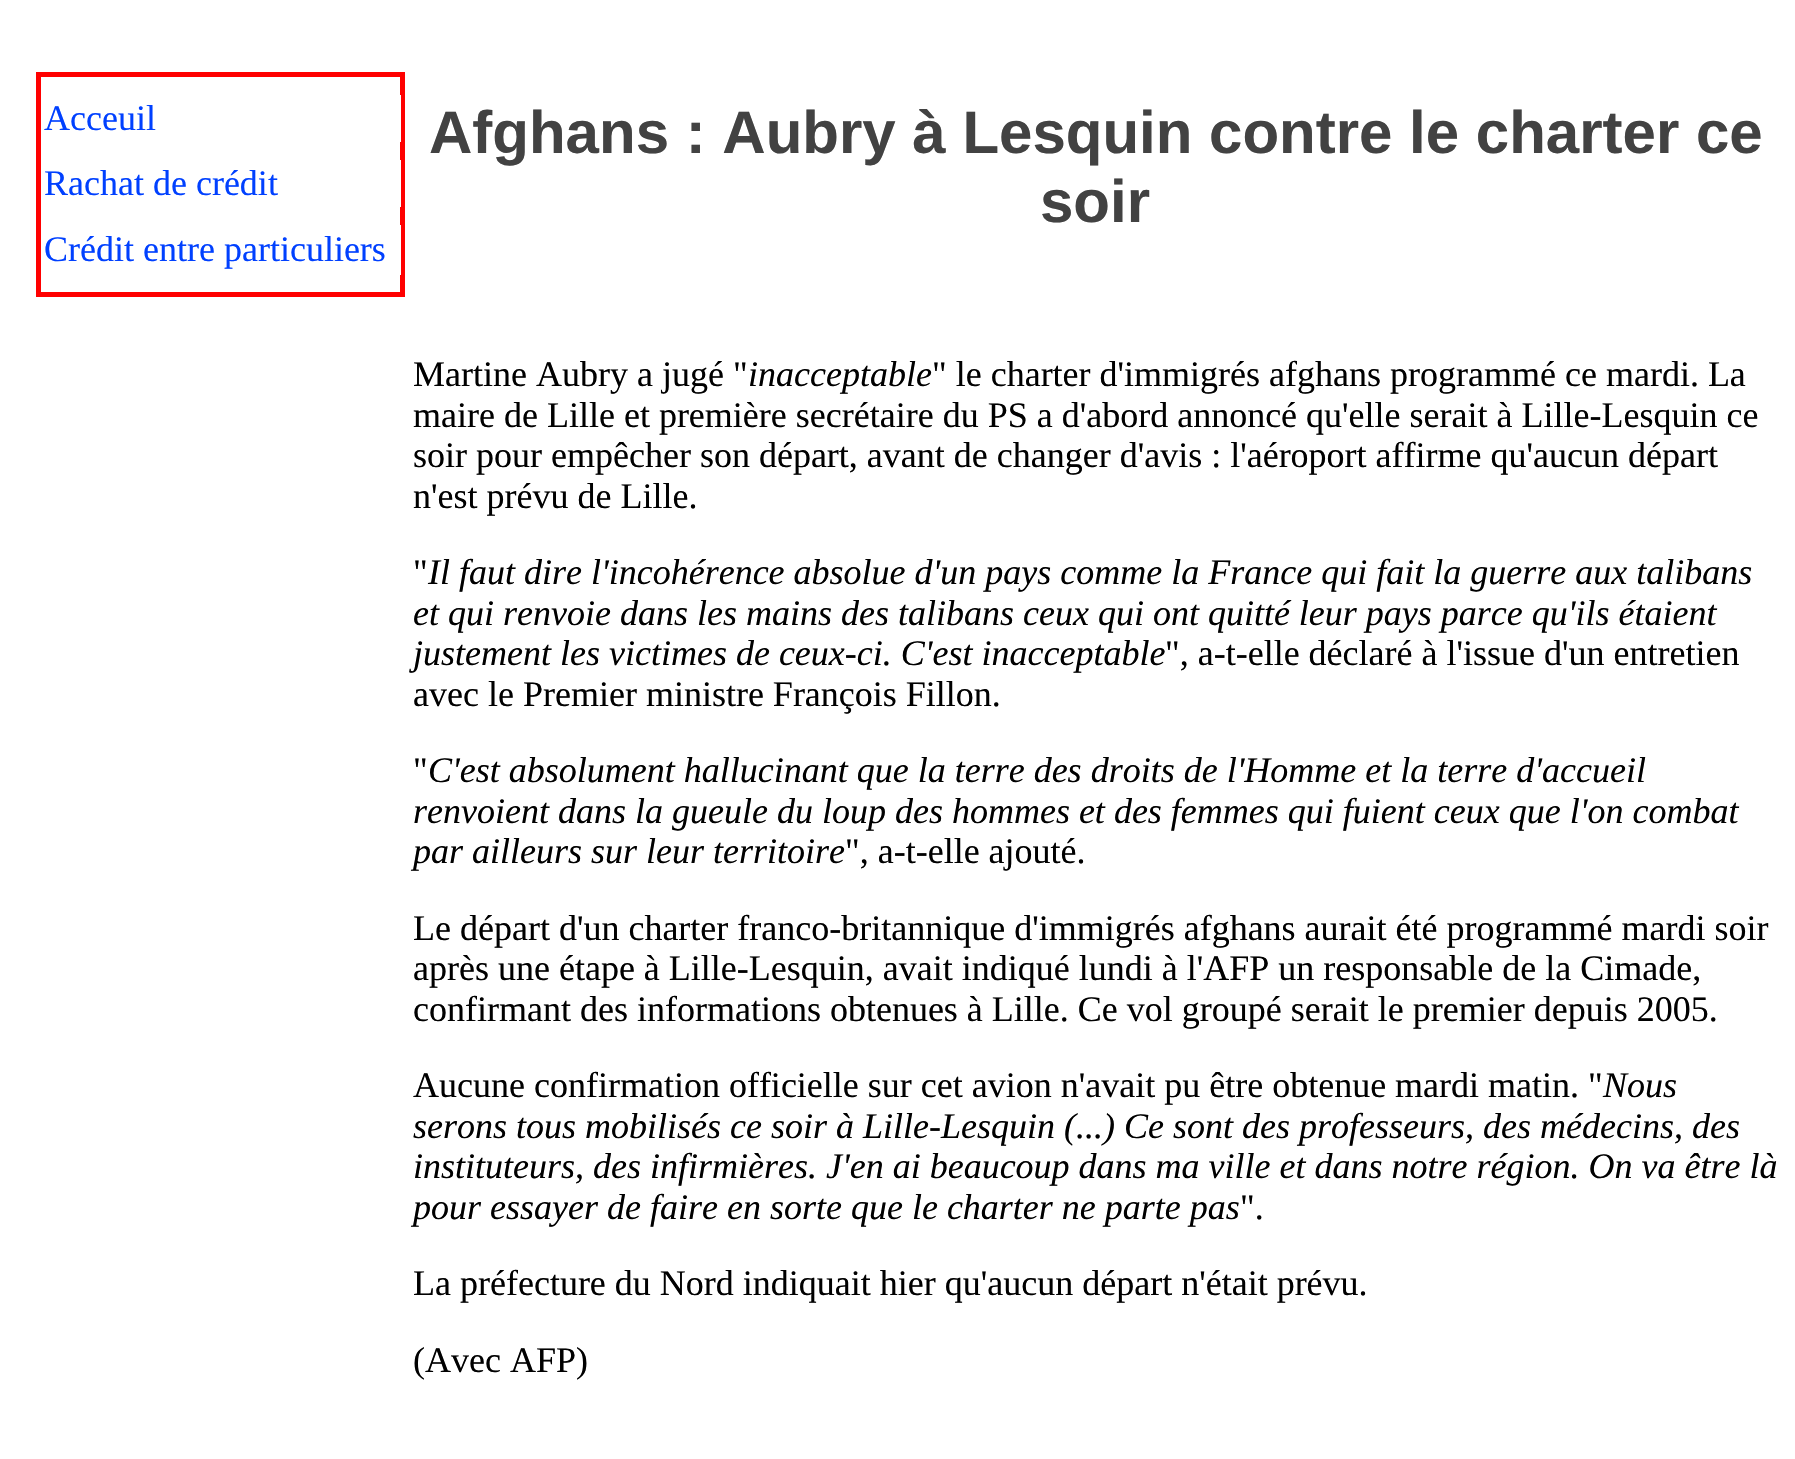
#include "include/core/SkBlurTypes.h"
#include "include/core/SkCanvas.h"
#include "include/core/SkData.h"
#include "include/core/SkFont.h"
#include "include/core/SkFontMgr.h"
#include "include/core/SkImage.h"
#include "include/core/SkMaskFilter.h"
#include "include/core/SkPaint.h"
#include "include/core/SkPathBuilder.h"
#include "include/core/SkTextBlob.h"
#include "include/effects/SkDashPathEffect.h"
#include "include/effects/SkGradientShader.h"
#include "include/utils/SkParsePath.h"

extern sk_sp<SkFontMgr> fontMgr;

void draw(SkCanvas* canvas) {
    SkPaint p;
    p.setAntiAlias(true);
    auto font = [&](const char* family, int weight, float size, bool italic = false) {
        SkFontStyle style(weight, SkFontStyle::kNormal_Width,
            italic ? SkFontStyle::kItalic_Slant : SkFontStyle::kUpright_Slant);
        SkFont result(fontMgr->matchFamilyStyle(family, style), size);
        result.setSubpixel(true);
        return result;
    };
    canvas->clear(0xFFFFFFFF);
    p.setStyle(SkPaint::kStroke_Style);
    p.setStrokeWidth(5);
    p.setColor(0xFFFF0000);
    canvas->drawRect(SkRect::MakeLTRB(38.5f, 74.5f, 402.5f, 294.5f), p);
    p.setStyle(SkPaint::kFill_Style);
    p.setColor(0xFFFFFFFF);
    canvas->drawRect(SkRect::MakeLTRB(400, 95, 401, 142), p);
    auto font1 = font("Liberation Serif", 400, 36);
    p.setColor(0xFF0040FF);
    canvas->drawString("Acceuil", 44, 130, font1, p);
    p.setColor(0xFFFFFFFF);
    canvas->drawRect(SkRect::MakeLTRB(400, 160, 401, 207), p);
    p.setColor(0xFF0040FF);
    canvas->drawString("Rachat de crédit", 44, 195, font1, p);
    p.setColor(0xFFFFFFFF);
    canvas->drawRect(SkRect::MakeLTRB(400, 225, 401, 275), p);
    p.setColor(0xFF0040FF);
    canvas->drawString("Crédit entre particuliers", 44, 261, font1, p);
    auto font2 = font("Liberation Sans", 700, 60);
    p.setColor(0xFF424242);
    canvas->drawString("Afghans : Aubry à Lesquin contre le charter ce", 429, 153, font2, p);
    canvas->drawString("soir", 1040, 222, font2, p);
    p.setColor(0xFF000000);
    canvas->drawString("Martine Aubry a jugé \"", 413, 386, font1, p);
    auto font3 = font("Liberation Serif", 400, 36, true);
    canvas->drawString("inacceptable", 748, 386, font3, p);
    {
        const struct { const char* s; float x, y; } items[] = {
            {"\" le charter d'immigrés afghans programmé ce mardi. La", 932, 386},
            {"maire de Lille et première secrétaire du PS a d'abord annoncé qu'elle serait à Lille-Lesquin ce", 413, 427},
            {"soir pour empêcher son départ, avant de changer d'avis : l'aéroport affirme qu'aucun départ", 413, 467},
            {"n'est prévu de Lille.", 413, 508},
            {"\"", 413, 584},
        };
        for (auto [s, x, y] : items) {
            canvas->drawString(s, x, y, font1, p);
        }
    }
    {
        const struct { const char* s; float x, y; } items[] = {
            {"Il faut dire l'incohérence absolue d'un pays comme la France qui fait la guerre aux talibans", 428, 584},
            {"et qui renvoie dans les mains des talibans ceux qui ont quitté leur pays parce qu'ils étaient", 413, 625},
            {"justement les victimes de ceux-ci. C'est inacceptable", 413, 665},
        };
        for (auto [s, x, y] : items) {
            canvas->drawString(s, x, y, font3, p);
        }
    }
    {
        const struct { const char* s; float x, y; } items[] = {
            {"\", a-t-elle déclaré à l'issue d'un entretien", 1165, 665},
            {"avec le Premier ministre François Fillon.", 413, 706},
            {"\"", 413, 782},
        };
        for (auto [s, x, y] : items) {
            canvas->drawString(s, x, y, font1, p);
        }
    }
    {
        const struct { const char* s; float x, y; } items[] = {
            {"C'est absolument hallucinant que la terre des droits de l'Homme et la terre d'accueil", 428, 782},
            {"renvoient dans la gueule du loup des hommes et des femmes qui fuient ceux que l'on combat", 413, 823},
            {"par ailleurs sur leur territoire", 413, 863},
        };
        for (auto [s, x, y] : items) {
            canvas->drawString(s, x, y, font3, p);
        }
    }
    {
        const struct { const char* s; float x, y; } items[] = {
            {"\", a-t-elle ajouté.", 845, 863},
            {"Le départ d'un charter franco-britannique d'immigrés afghans aurait été programmé mardi soir", 413, 940},
            {"après une étape à Lille-Lesquin, avait indiqué lundi à l'AFP un responsable de la Cimade,", 413, 980},
            {"confirmant des informations obtenues à Lille. Ce vol groupé serait le premier depuis 2005.", 413, 1021},
            {"Aucune confirmation officielle sur cet avion n'avait pu être obtenue mardi matin. \"", 413, 1097},
        };
        for (auto [s, x, y] : items) {
            canvas->drawString(s, x, y, font1, p);
        }
    }
    {
        const struct { const char* s; float x, y; } items[] = {
            {"Nous", 1603, 1097},
            {"serons tous mobilisés ce soir à Lille-Lesquin (...) Ce sont des professeurs, des médecins, des", 413, 1138},
            {"instituteurs, des infirmières. J'en ai beaucoup dans ma ville et dans notre région. On va être là", 413, 1178},
            {"pour essayer de faire en sorte que le charter ne parte pas", 413, 1219},
        };
        for (auto [s, x, y] : items) {
            canvas->drawString(s, x, y, font3, p);
        }
    }
    {
        const struct { const char* s; float x, y; } items[] = {
            {"\".", 1240, 1219},
            {"La préfecture du Nord indiquait hier qu'aucun départ n'était prévu.", 413, 1295},
            {"(Avec AFP)", 413, 1372},
        };
        for (auto [s, x, y] : items) {
            canvas->drawString(s, x, y, font1, p);
        }
    }
}
